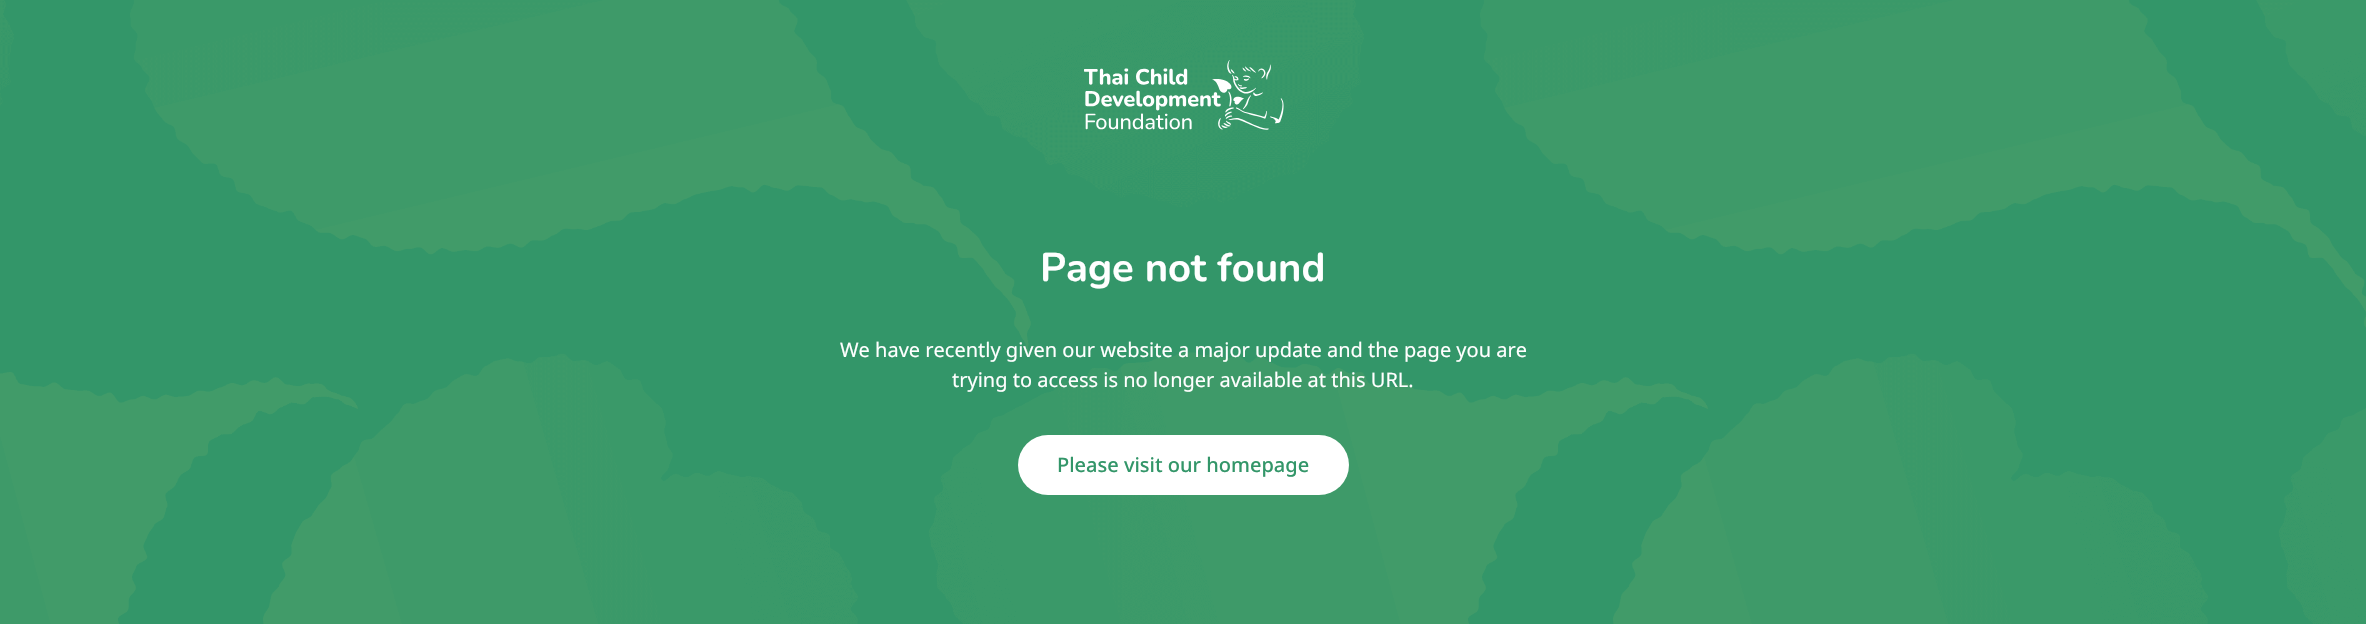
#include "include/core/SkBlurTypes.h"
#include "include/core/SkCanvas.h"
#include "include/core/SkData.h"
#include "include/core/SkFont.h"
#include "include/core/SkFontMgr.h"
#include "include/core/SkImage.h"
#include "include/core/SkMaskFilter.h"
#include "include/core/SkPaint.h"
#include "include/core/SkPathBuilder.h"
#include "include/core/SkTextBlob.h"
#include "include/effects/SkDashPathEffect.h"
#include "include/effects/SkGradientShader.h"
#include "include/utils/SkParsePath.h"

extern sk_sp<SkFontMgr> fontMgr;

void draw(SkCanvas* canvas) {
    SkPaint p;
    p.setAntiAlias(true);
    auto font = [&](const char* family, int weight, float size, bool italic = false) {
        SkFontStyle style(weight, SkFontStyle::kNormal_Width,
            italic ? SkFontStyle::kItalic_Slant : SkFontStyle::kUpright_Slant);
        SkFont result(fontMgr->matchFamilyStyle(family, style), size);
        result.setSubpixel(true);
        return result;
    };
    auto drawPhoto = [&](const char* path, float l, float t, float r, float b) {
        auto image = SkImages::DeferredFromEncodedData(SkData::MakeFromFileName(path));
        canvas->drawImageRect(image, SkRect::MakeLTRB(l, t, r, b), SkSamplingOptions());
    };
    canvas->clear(0xFFFFFFFF);
    drawPhoto("media/1.png", 0, 0, 2366, 624);
    drawPhoto("media/2.png", 1084, 60, 1284, 130);
    auto font1 = font("Nunito", 200, 40);
    p.setColor(0xFFFFFFFF);
    canvas->drawString("Page not found", 1040, 281, font1, p);
    auto font2 = font("Noto Sans", 400, 20);
    canvas->drawString("We have recently given our website a major update and the page you are", 840, 357, font2, p);
    canvas->drawString("trying to access is no longer available at this URL.", 952, 387, font2, p);
    canvas->drawRoundRect(SkRect::MakeLTRB(1018, 435, 1349, 495), 30, 30, p);
    auto font3 = font("Noto Sans", 500, 20);
    p.setColor(0xFF339669);
    canvas->drawString("Please visit our homepage", 1057, 472, font3, p);
}
